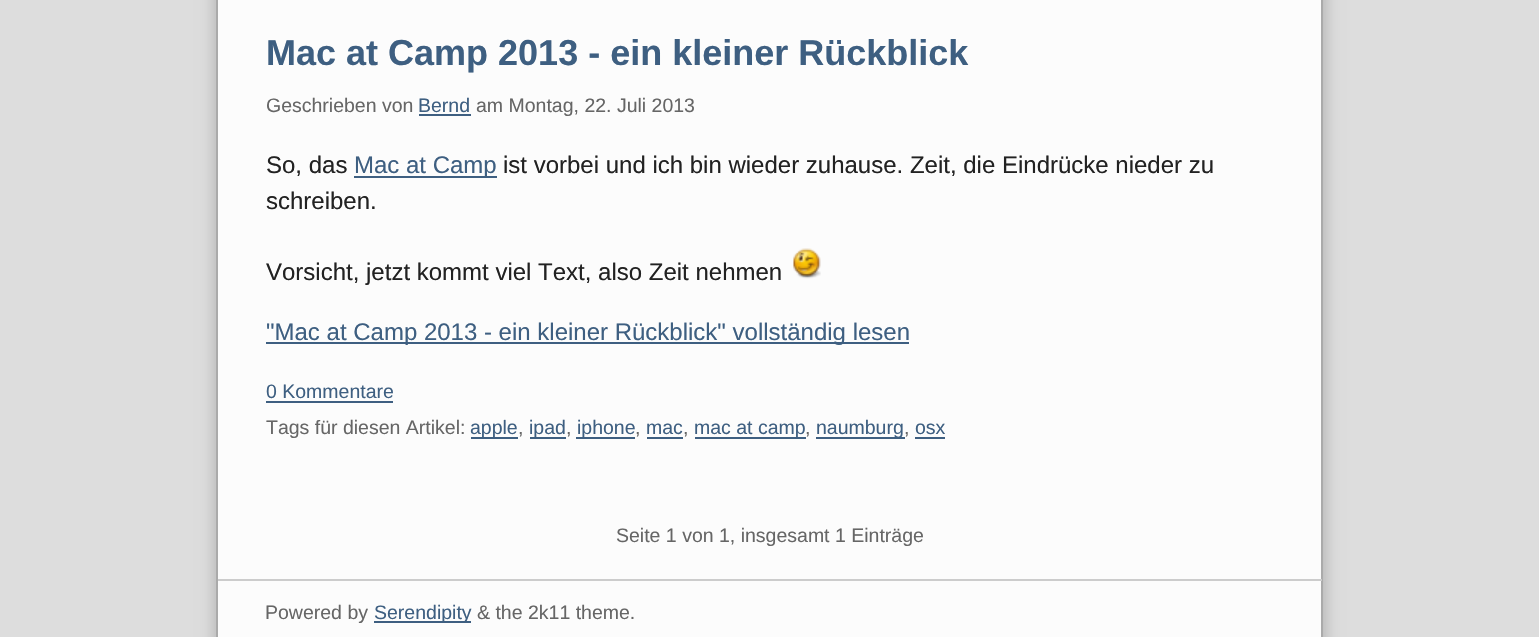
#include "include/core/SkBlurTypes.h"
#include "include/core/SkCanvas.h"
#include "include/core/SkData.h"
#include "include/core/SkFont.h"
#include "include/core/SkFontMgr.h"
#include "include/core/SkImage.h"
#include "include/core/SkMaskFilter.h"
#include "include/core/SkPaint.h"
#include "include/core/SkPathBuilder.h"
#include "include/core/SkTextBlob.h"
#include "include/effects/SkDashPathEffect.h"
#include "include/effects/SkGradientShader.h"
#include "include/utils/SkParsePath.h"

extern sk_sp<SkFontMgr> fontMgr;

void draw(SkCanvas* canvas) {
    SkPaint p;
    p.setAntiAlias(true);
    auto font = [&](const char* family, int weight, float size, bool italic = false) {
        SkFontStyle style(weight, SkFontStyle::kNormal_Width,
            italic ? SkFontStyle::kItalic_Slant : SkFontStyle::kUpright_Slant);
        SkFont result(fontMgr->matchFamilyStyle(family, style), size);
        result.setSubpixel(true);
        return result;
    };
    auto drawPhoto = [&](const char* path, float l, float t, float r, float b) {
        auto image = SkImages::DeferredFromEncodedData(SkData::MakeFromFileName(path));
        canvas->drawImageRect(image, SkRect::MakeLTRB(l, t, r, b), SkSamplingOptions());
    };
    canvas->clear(0xFFDDDDDD);
    p.setColor(0x33000000);
    p.setMaskFilter(SkMaskFilter::MakeBlur(kNormal_SkBlurStyle, 7.5f));
    canvas->drawRect(SkRect::MakeLTRB(215, -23, 1325, 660), p);
    p.setMaskFilter(nullptr);
    p.setColor(0xFFFCFCFC);
    canvas->drawRect(SkRect::MakeLTRB(217, -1, 1322, 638), p);
    p.setStyle(SkPaint::kStroke_Style);
    p.setStrokeWidth(2);
    p.setColor(0xFFAAAAAA);
    canvas->drawRect(SkRect::MakeLTRB(217, -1, 1322, 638), p);
    auto font1 = font("Liberation Sans", 700, 36);
    p.setStyle(SkPaint::kFill_Style);
    p.setColor(0xFF3E5F81);
    canvas->drawString("Mac at Camp 2013 - ein kleiner Rückblick", 266, 65, font1, p);
    auto font2 = font("Liberation Sans", 400, 19.5f);
    p.setColor(0xFF666666);
    canvas->drawString("Geschrieben von", 266, 112, font2, p);
    p.setColor(0xFF3E5F81);
    canvas->drawString("Bernd", 418, 112, font2, p);
    canvas->drawRect(SkRect::MakeLTRB(419, 114, 471, 116), p);
    p.setColor(0xFF666666);
    canvas->drawString("am Montag, 22. Juli 2013", 476, 112, font2, p);
    auto font3 = font("Liberation Sans", 400, 24);
    p.setColor(0xFF222222);
    canvas->drawString("So, das", 266, 173, font3, p);
    p.setColor(0xFF3E5F81);
    canvas->drawRect(SkRect::MakeLTRB(354, 176, 497, 178), p);
    canvas->drawString("Mac at Camp", 354, 173, font3, p);
    p.setColor(0xFF222222);
    {
        const struct { const char* s; float x, y; } items[] = {
            {"ist vorbei und ich bin wieder zuhause. Zeit, die Eindrücke nieder zu", 503, 173},
            {"schreiben.", 266, 209},
            {"Vorsicht, jetzt kommt viel Text, also Zeit nehmen", 266, 280},
        };
        for (auto [s, x, y] : items) {
            canvas->drawString(s, x, y, font3, p);
        }
    }
    drawPhoto("media/1.png", 793, 248, 821, 279);
    p.setColor(0xFF3E5F81);
    canvas->drawRect(SkRect::MakeLTRB(266, 342, 909, 344), p);
    canvas->drawString("\"Mac at Camp 2013 - ein kleiner Rückblick\" vollständig lesen", 266, 340, font3, p);
    canvas->drawString("0 Kommentare", 266, 398, font2, p);
    canvas->drawRect(SkRect::MakeLTRB(266, 401, 393, 403), p);
    p.setColor(0xFF666666);
    canvas->drawString("Tags für diesen Artikel:", 266, 434, font2, p);
    p.setColor(0xFF3E5F81);
    canvas->drawRect(SkRect::MakeLTRB(471, 437, 518, 439), p);
    canvas->drawString("apple", 470, 434, font2, p);
    p.setColor(0xFF666666);
    canvas->drawString(",", 518, 434, font2, p);
    p.setColor(0xFF3E5F81);
    canvas->drawRect(SkRect::MakeLTRB(530, 437, 566, 439), p);
    canvas->drawString("ipad", 529, 434, font2, p);
    p.setColor(0xFF666666);
    canvas->drawString(",", 566, 434, font2, p);
    p.setColor(0xFF3E5F81);
    canvas->drawRect(SkRect::MakeLTRB(576, 437, 635, 439), p);
    canvas->drawString("iphone", 577, 434, font2, p);
    p.setColor(0xFF666666);
    canvas->drawString(",", 635, 434, font2, p);
    p.setColor(0xFF3E5F81);
    canvas->drawString("mac", 646, 434, font2, p);
    canvas->drawRect(SkRect::MakeLTRB(647, 437, 683, 439), p);
    p.setColor(0xFF666666);
    canvas->drawString(",", 683, 434, font2, p);
    p.setColor(0xFF3E5F81);
    canvas->drawRect(SkRect::MakeLTRB(695, 437, 806, 439), p);
    canvas->drawString("mac at camp", 694, 434, font2, p);
    p.setColor(0xFF666666);
    canvas->drawString(",", 805, 434, font2, p);
    p.setColor(0xFF3E5F81);
    canvas->drawRect(SkRect::MakeLTRB(816, 437, 905, 439), p);
    canvas->drawString("naumburg", 816, 434, font2, p);
    p.setColor(0xFF666666);
    canvas->drawString(",", 904, 434, font2, p);
    p.setColor(0xFF3E5F81);
    canvas->drawString("osx", 915, 434, font2, p);
    canvas->drawRect(SkRect::MakeLTRB(915, 437, 945, 439), p);
    p.setColor(0xFF666666);
    canvas->drawString("Seite 1 von 1, insgesamt 1 Einträge", 616, 542, font2, p);
    p.setColor(0xFFCCCCCC);
    canvas->drawRect(SkRect::MakeLTRB(218, 579, 1322, 581), p);
    p.setColor(0xFF666666);
    canvas->drawString("Powered by", 265, 619, font2, p);
    p.setColor(0xFF3E5F81);
    canvas->drawRect(SkRect::MakeLTRB(374, 621, 471, 623), p);
    canvas->drawString("Serendipity", 374, 619, font2, p);
    p.setColor(0xFF666666);
    canvas->drawString("& the 2k11 theme.", 477, 619, font2, p);
}
